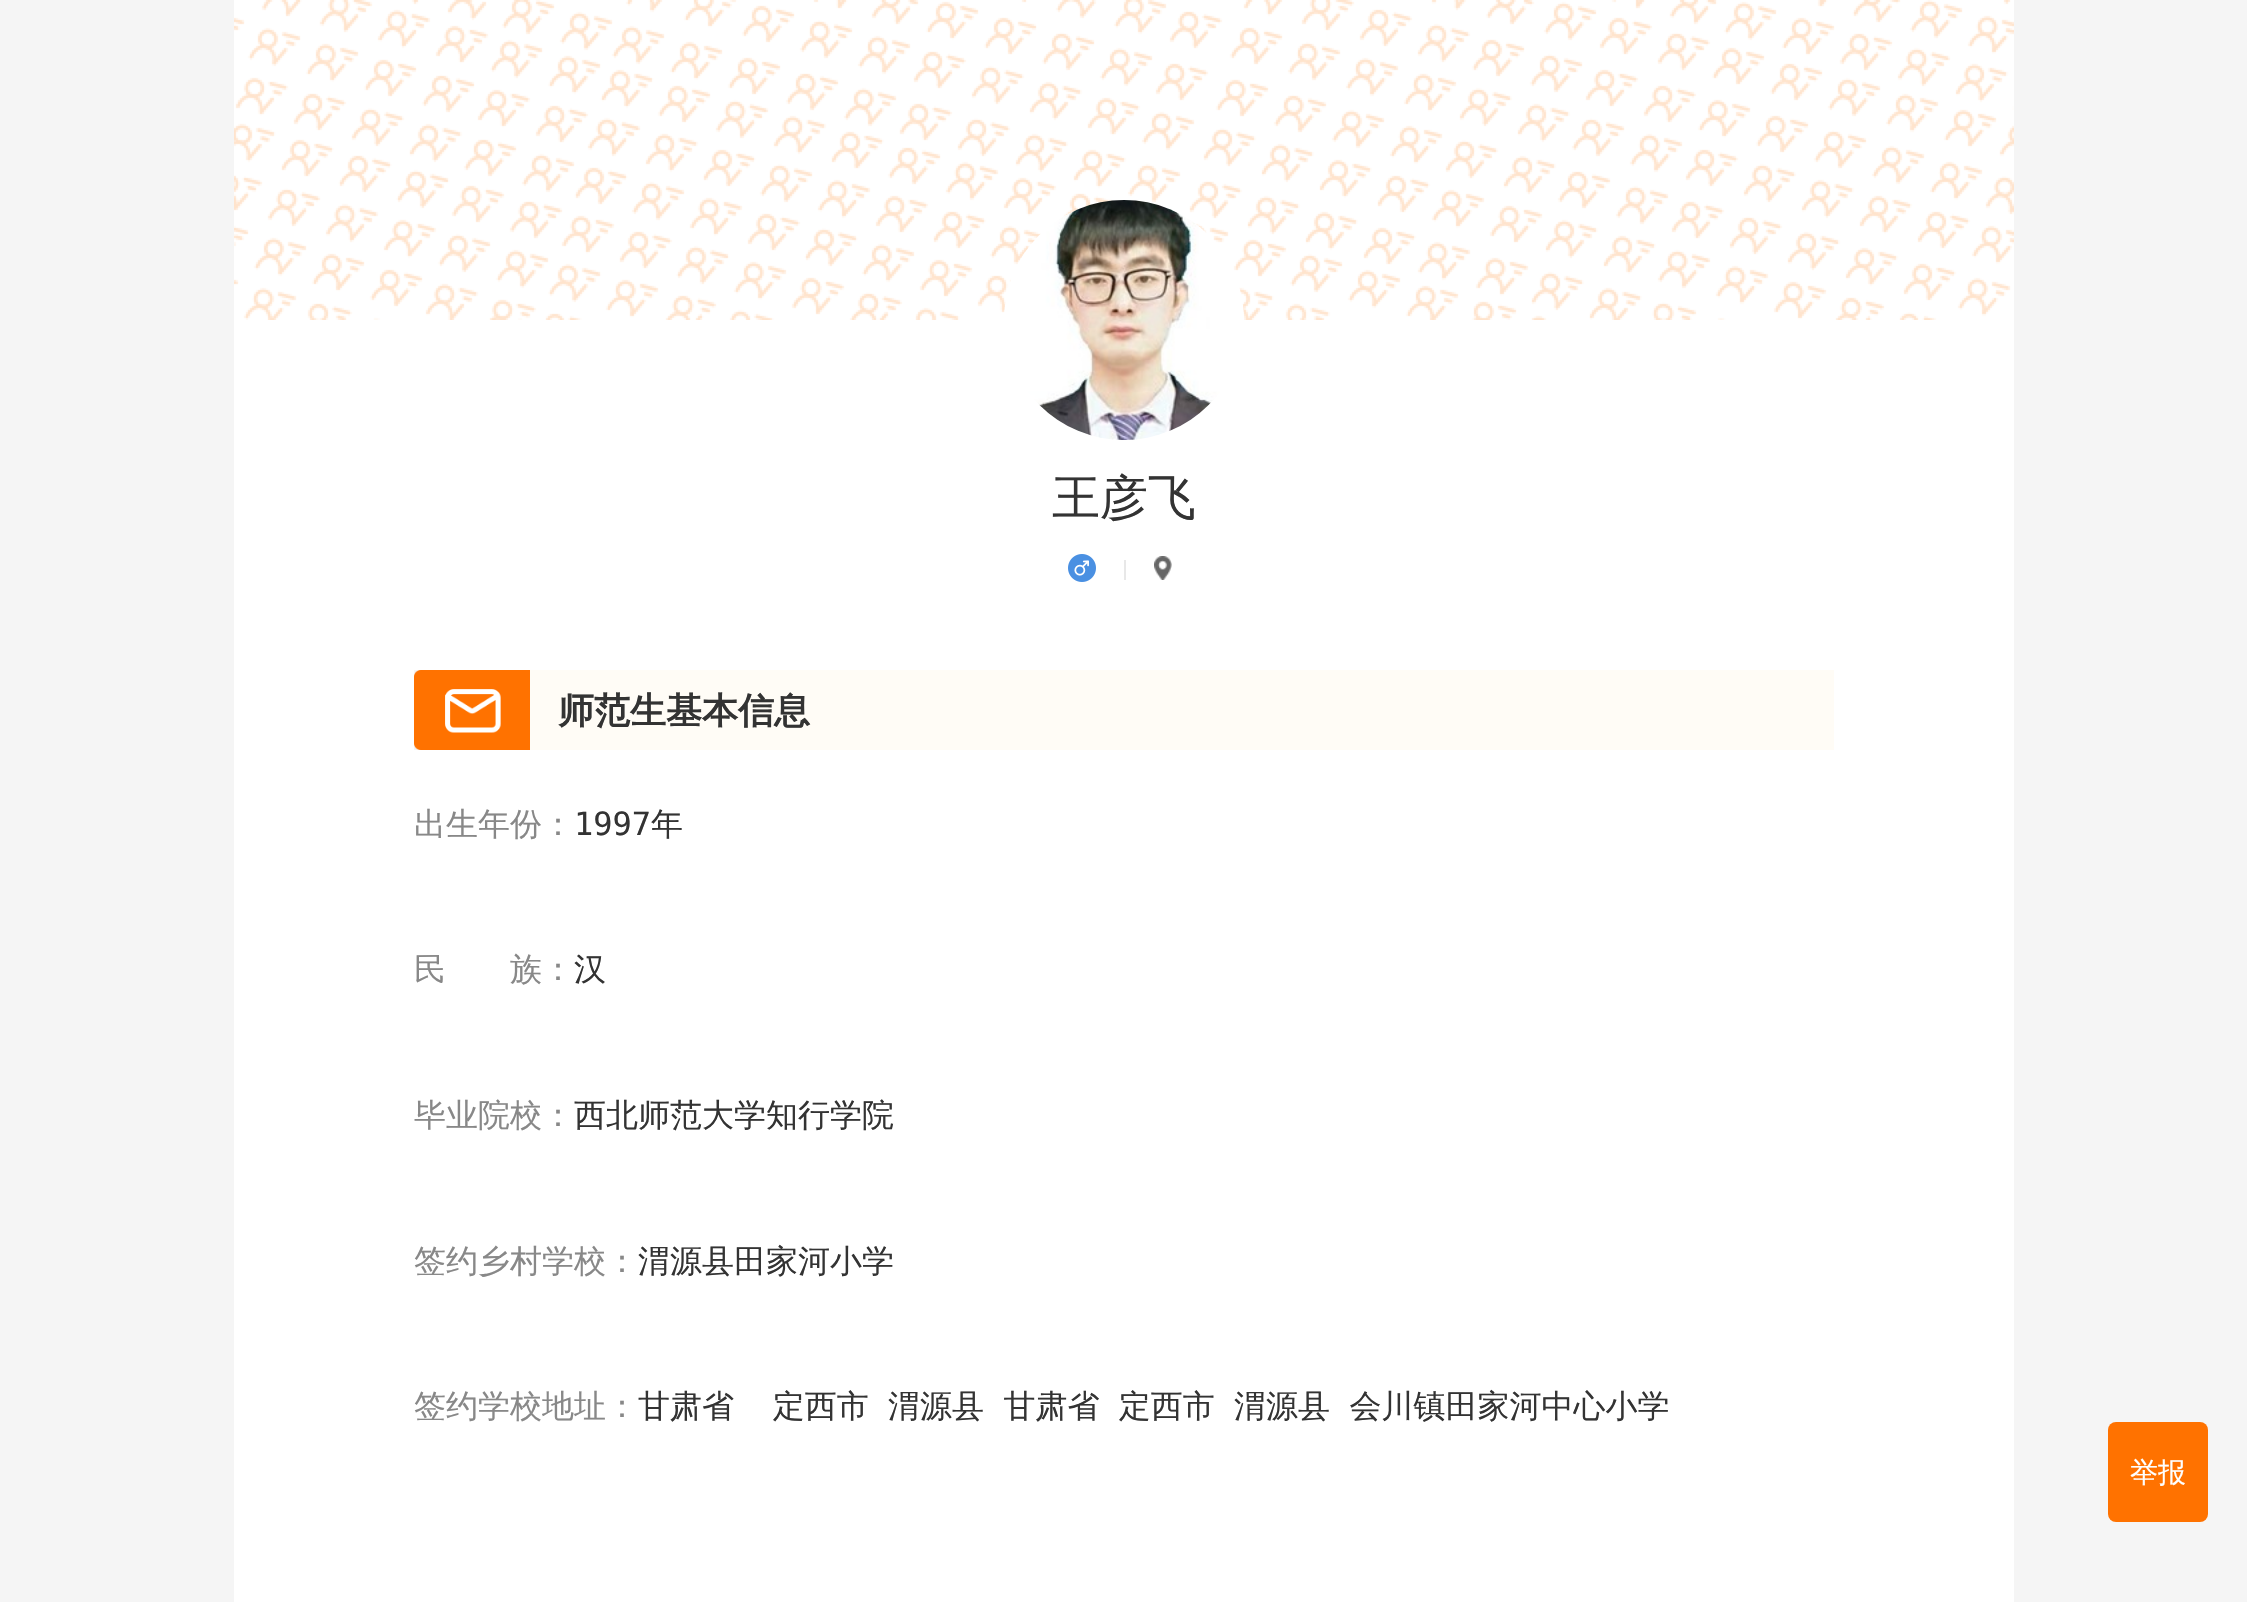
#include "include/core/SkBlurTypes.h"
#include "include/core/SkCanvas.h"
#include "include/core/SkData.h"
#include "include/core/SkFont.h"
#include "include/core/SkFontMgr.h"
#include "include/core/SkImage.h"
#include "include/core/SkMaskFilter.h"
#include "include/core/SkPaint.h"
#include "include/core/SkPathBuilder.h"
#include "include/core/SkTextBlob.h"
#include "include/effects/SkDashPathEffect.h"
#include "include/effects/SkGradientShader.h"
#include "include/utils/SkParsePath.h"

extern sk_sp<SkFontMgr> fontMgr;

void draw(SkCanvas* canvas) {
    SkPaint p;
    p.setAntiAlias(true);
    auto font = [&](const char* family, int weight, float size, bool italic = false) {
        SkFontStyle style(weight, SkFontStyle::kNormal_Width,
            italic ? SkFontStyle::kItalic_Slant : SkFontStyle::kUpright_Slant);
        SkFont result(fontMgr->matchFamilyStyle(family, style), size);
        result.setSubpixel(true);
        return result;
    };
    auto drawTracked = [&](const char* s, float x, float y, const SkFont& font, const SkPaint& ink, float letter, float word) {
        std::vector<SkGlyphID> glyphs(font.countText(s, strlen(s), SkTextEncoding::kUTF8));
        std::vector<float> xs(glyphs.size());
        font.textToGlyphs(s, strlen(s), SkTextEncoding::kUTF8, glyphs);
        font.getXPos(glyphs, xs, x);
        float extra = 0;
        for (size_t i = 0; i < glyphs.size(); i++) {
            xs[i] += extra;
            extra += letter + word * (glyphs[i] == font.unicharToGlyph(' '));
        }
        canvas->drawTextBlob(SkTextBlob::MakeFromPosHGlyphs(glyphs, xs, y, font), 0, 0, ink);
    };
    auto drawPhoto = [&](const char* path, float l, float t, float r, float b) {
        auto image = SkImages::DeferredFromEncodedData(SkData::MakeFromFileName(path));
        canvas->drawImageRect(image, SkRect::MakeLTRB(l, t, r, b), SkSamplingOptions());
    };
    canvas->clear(0xFFF5F5F5);
    p.setColor(0xFFFFFFFF);
    canvas->drawRect(SkRect::MakeLTRB(234, 320, 2014, 1602), p);
    drawPhoto("media/1.png", 234, 0, 2014, 320);
    drawPhoto("media/2.png", 1004, 200, 1244, 440);
    auto font1 = font("WenQuanYi Zen Hei", 500, 48);
    p.setColor(0xFF333333);
    canvas->drawString("王彦飞", 1052, 514, font1, p);
    drawPhoto("media/3.png", 1068, 554, 1096, 582);
    p.setColor(0xFFE8E8E8);
    canvas->drawRect(SkRect::MakeLTRB(1124, 560, 1126, 580), p);
    drawPhoto("media/4.png", 1154, 556, 1172, 580);
    p.setColor(0xFFFFFCF6);
    canvas->drawRect(SkRect::MakeLTRB(530, 670, 1834, 750), p);
    drawPhoto("media/5.png", 414, 670, 530, 750);
    auto font2 = font("WenQuanYi Zen Hei", 700, 36);
    p.setColor(0xFF333333);
    canvas->drawString("师范生基本信息", 558, 723, font2, p);
    auto font3 = font("WenQuanYi Zen Hei", 500, 32);
    p.setColor(0xFF888888);
    canvas->drawString("出生年份：", 414, 835, font3, p);
    auto font4 = font("DejaVu Sans Mono", 400, 32);
    p.setColor(0xFF333333);
    canvas->drawString("1997", 574, 835, font4, p);
    canvas->drawString("年", 651, 835, font3, p);
    p.setColor(0xFF888888);
    canvas->drawString("民　　族：", 414, 980, font3, p);
    p.setColor(0xFF333333);
    canvas->drawString("汉", 574, 980, font3, p);
    p.setColor(0xFF888888);
    canvas->drawString("毕业院校：", 414, 1126, font3, p);
    p.setColor(0xFF333333);
    canvas->drawString("西北师范大学知行学院", 574, 1126, font3, p);
    p.setColor(0xFF888888);
    canvas->drawString("签约乡村学校：", 414, 1272, font3, p);
    p.setColor(0xFF333333);
    canvas->drawString("渭源县田家河小学", 638, 1272, font3, p);
    p.setColor(0xFF888888);
    canvas->drawString("签约学校地址：", 414, 1417, font3, p);
    p.setColor(0xFF333333);
    drawTracked("甘肃省  定西市 渭源县 甘肃省 定西市 渭源县 会川镇田家河中心小学", 638, 1417, font3, p, 0, 9.75f);
    p.setColor(0xFFFF7200);
    canvas->drawRoundRect(SkRect::MakeLTRB(2108, 1422, 2208, 1522), 8, 8, p);
    auto font5 = font("WenQuanYi Zen Hei", 500, 28);
    p.setColor(0xFFFFFFFF);
    canvas->drawString("举报", 2130, 1482, font5, p);
}
